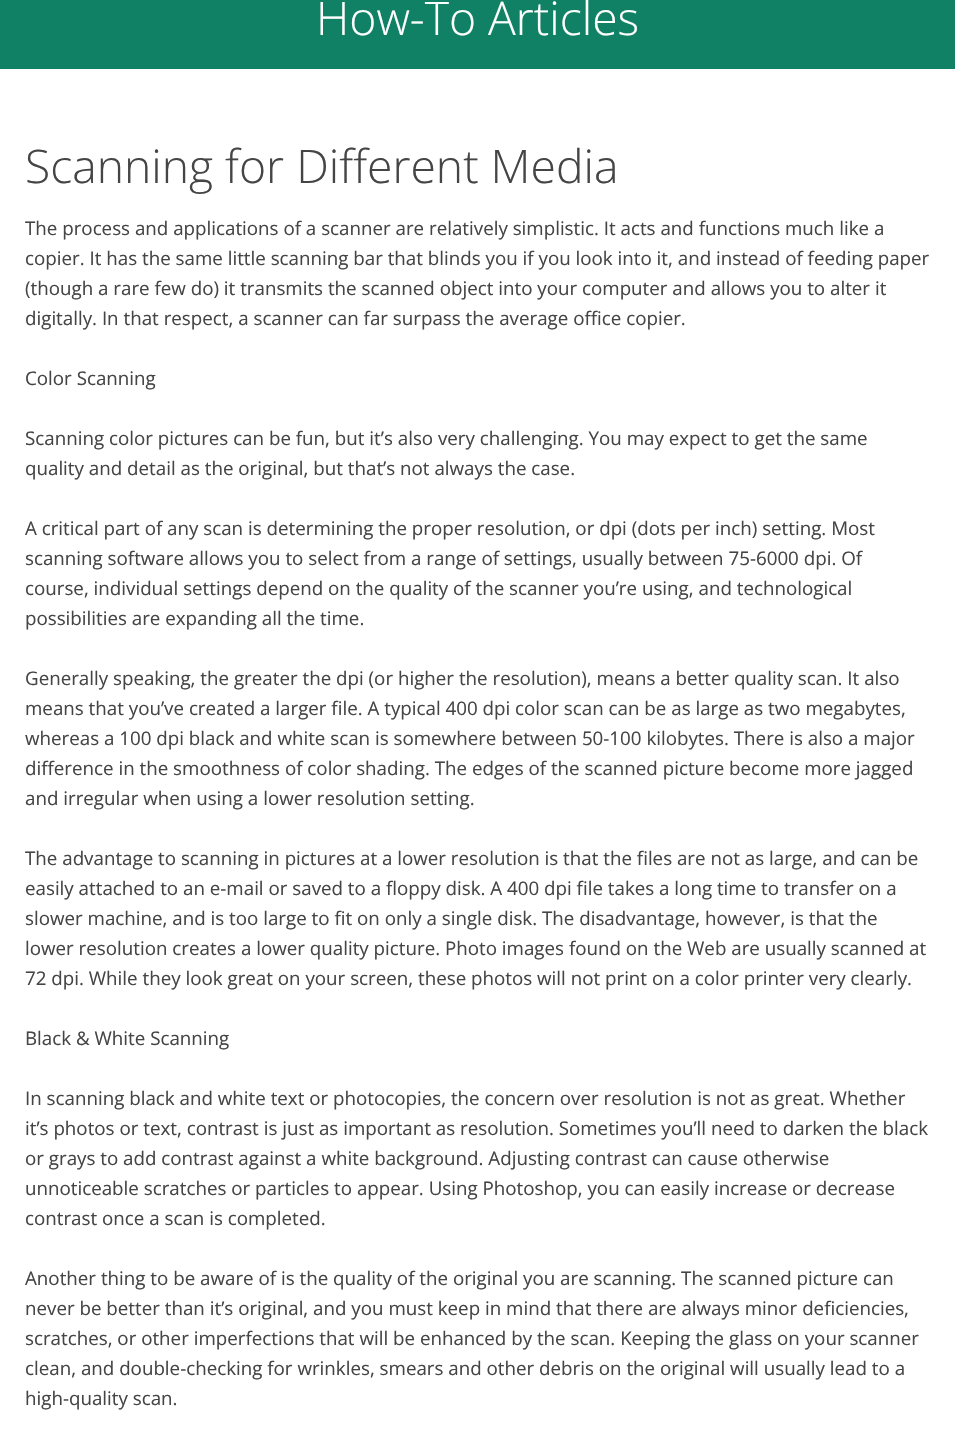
#include "include/core/SkBlurTypes.h"
#include "include/core/SkCanvas.h"
#include "include/core/SkData.h"
#include "include/core/SkFont.h"
#include "include/core/SkFontMgr.h"
#include "include/core/SkImage.h"
#include "include/core/SkMaskFilter.h"
#include "include/core/SkPaint.h"
#include "include/core/SkPathBuilder.h"
#include "include/core/SkTextBlob.h"
#include "include/effects/SkDashPathEffect.h"
#include "include/effects/SkGradientShader.h"
#include "include/utils/SkParsePath.h"

extern sk_sp<SkFontMgr> fontMgr;

void draw(SkCanvas* canvas) {
    SkPaint p;
    p.setAntiAlias(true);
    auto font = [&](const char* family, int weight, float size, bool italic = false) {
        SkFontStyle style(weight, SkFontStyle::kNormal_Width,
            italic ? SkFontStyle::kItalic_Slant : SkFontStyle::kUpright_Slant);
        SkFont result(fontMgr->matchFamilyStyle(family, style), size);
        result.setSubpixel(true);
        return result;
    };
    canvas->clear(0xFFFFFFFF);
    p.setColor(0xFF108165);
    canvas->drawRect(SkRect::MakeLTRB(0, 0, 955, 69), p);
    auto font1 = font("Open Sans", 300, 46.25f);
    p.setColor(0xFFFFFFFF);
    canvas->drawString("How-To Articles", 316, 35, font1, p);
    p.setColor(0xFF454545);
    canvas->drawString("Scanning for Different Media", 25, 183, font1, p);
    auto font2 = font("Open Sans", 400, 18.75f);
    {
        const struct { const char* s; float x, y; } items[] = {
            {"The process and applications of a scanner are relatively simplistic. It acts and functions much like a", 25, 235},
            {"copier. It has the same little scanning bar that blinds you if you look into it, and instead of feeding paper", 25, 265},
            {"(though a rare few do) it transmits the scanned object into your computer and allows you to alter it", 25, 295},
            {"digitally. In that respect, a scanner can far surpass the average office copier.", 25, 325},
            {"Color Scanning", 25, 385},
            {"Scanning color pictures can be fun, but it’s also very challenging. You may expect to get the same", 25, 445},
            {"quality and detail as the original, but that’s not always the case.", 25, 475},
            {"A critical part of any scan is determining the proper resolution, or dpi (dots per inch) setting. Most", 25, 535},
            {"scanning software allows you to select from a range of settings, usually between 75-6000 dpi. Of", 25, 565},
            {"course, individual settings depend on the quality of the scanner you’re using, and technological", 25, 595},
            {"possibilities are expanding all the time.", 25, 625},
            {"Generally speaking, the greater the dpi (or higher the resolution), means a better quality scan. It also", 25, 685},
            {"means that you’ve created a larger file. A typical 400 dpi color scan can be as large as two megabytes,", 25, 715},
            {"whereas a 100 dpi black and white scan is somewhere between 50-100 kilobytes. There is also a major", 25, 745},
            {"difference in the smoothness of color shading. The edges of the scanned picture become more jagged", 25, 775},
            {"and irregular when using a lower resolution setting.", 25, 805},
            {"The advantage to scanning in pictures at a lower resolution is that the files are not as large, and can be", 25, 865},
            {"easily attached to an e-mail or saved to a floppy disk. A 400 dpi file takes a long time to transfer on a", 25, 895},
            {"slower machine, and is too large to fit on only a single disk. The disadvantage, however, is that the", 25, 925},
            {"lower resolution creates a lower quality picture. Photo images found on the Web are usually scanned at", 25, 955},
            {"72 dpi. While they look great on your screen, these photos will not print on a color printer very clearly.", 25, 985},
            {"Black & White Scanning", 25, 1045},
            {"In scanning black and white text or photocopies, the concern over resolution is not as great. Whether", 25, 1105},
            {"it’s photos or text, contrast is just as important as resolution. Sometimes you’ll need to darken the black", 25, 1135},
            {"or grays to add contrast against a white background. Adjusting contrast can cause otherwise", 25, 1165},
            {"unnoticeable scratches or particles to appear. Using Photoshop, you can easily increase or decrease", 25, 1195},
            {"contrast once a scan is completed.", 25, 1225},
            {"Another thing to be aware of is the quality of the original you are scanning. The scanned picture can", 25, 1285},
            {"never be better than it’s original, and you must keep in mind that there are always minor deficiencies,", 25, 1315},
            {"scratches, or other imperfections that will be enhanced by the scan. Keeping the glass on your scanner", 25, 1345},
            {"clean, and double-checking for wrinkles, smears and other debris on the original will usually lead to a", 25, 1375},
            {"high-quality scan.", 25, 1405},
        };
        for (auto [s, x, y] : items) {
            canvas->drawString(s, x, y, font2, p);
        }
    }
}
